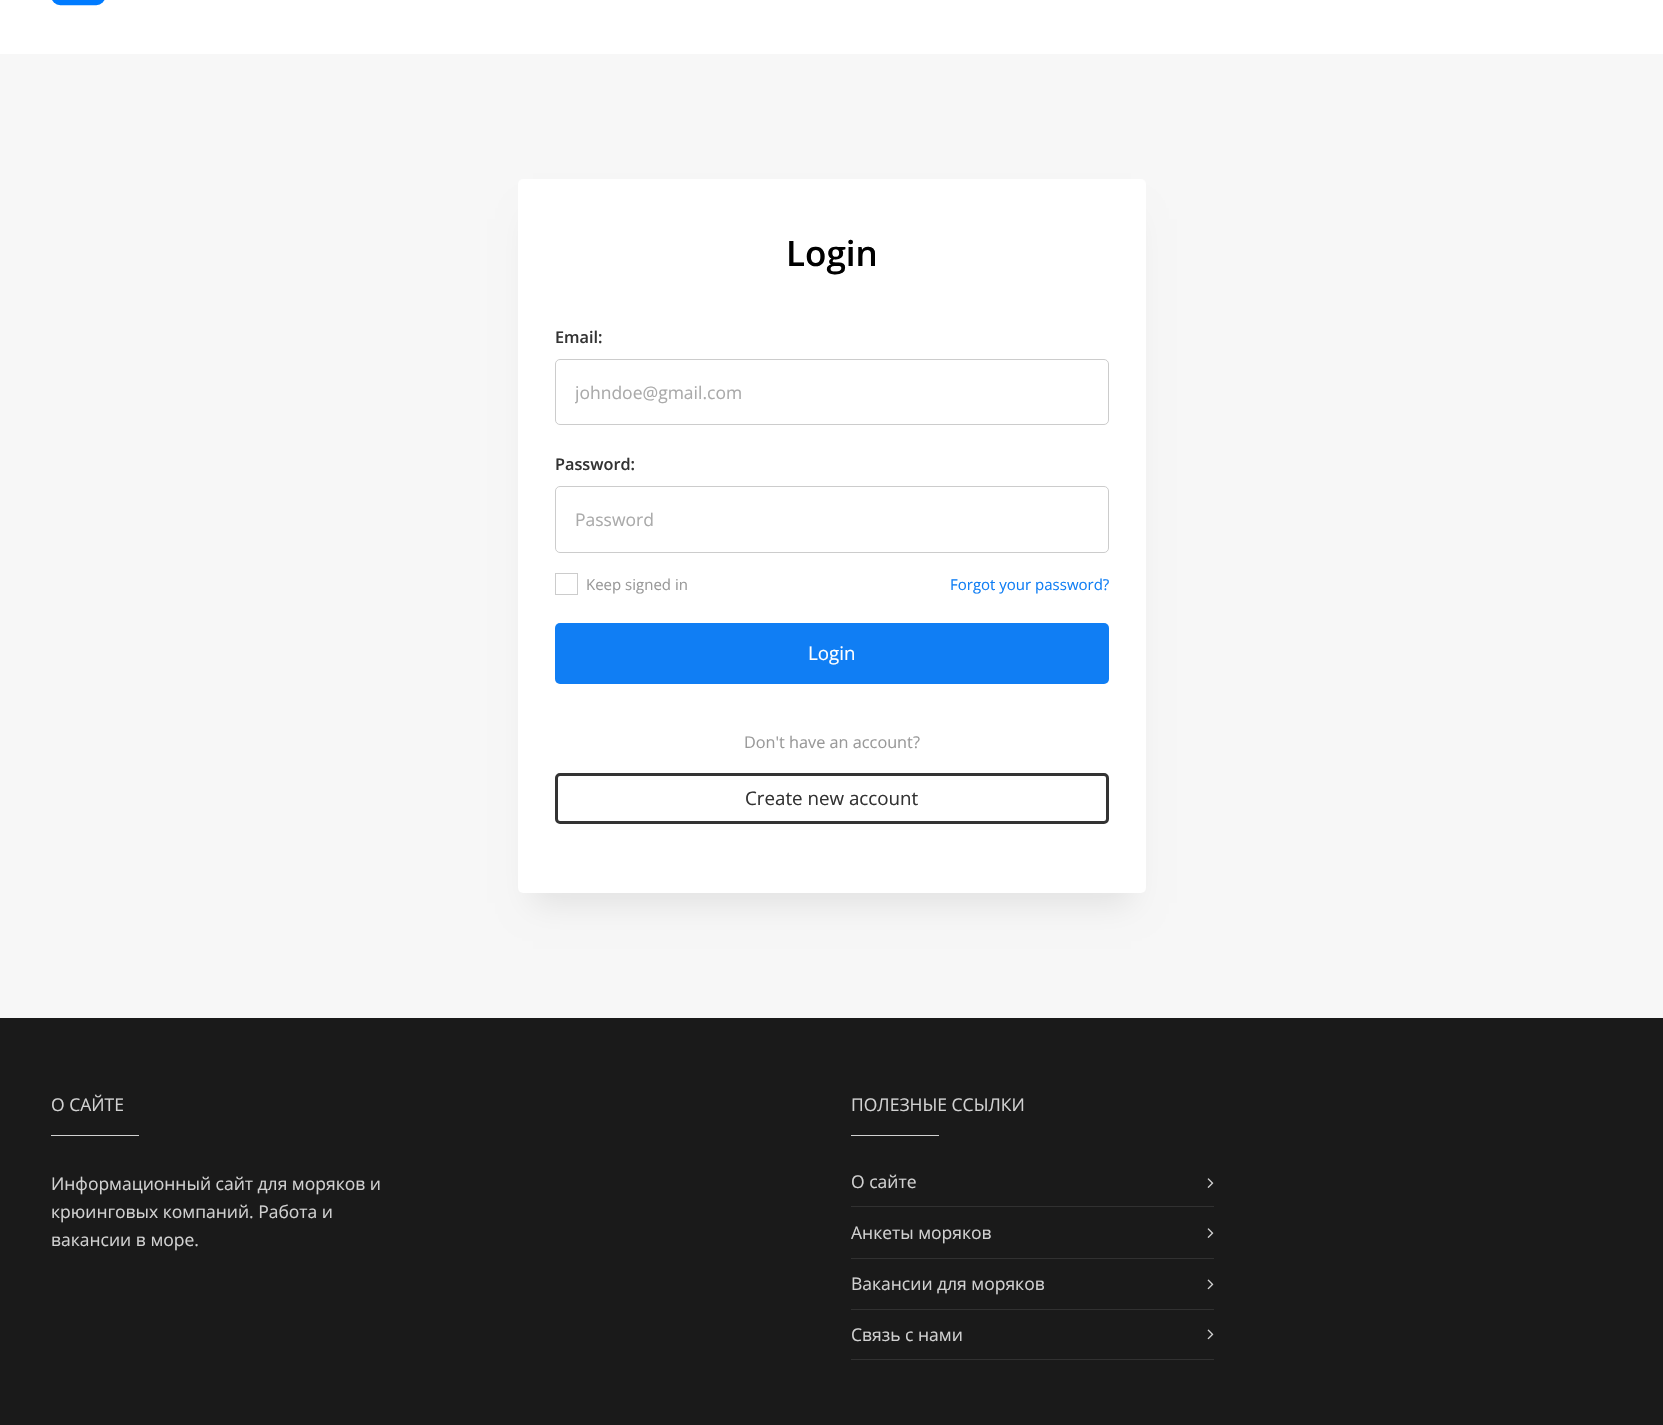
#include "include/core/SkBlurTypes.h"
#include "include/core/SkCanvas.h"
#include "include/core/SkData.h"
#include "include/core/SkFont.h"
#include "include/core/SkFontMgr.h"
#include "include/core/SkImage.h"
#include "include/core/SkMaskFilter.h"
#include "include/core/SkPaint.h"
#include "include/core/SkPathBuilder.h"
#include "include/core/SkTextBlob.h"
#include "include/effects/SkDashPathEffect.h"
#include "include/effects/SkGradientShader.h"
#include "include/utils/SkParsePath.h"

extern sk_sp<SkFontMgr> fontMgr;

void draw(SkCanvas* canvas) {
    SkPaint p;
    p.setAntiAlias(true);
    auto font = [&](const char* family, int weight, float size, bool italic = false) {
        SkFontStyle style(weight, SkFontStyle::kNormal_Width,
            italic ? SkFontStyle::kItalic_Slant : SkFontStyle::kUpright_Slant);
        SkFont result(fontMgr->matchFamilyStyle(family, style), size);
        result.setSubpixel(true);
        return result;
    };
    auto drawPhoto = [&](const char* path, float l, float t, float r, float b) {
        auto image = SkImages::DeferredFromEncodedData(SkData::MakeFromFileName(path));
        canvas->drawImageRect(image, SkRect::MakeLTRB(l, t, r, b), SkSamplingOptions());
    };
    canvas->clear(0xFFFFFFFF);
    drawPhoto("media/1.png", 52, 0, 105, 6);
    p.setColor(0xFFF7F7F7);
    canvas->drawRect(SkRect::MakeLTRB(0, 54, 1663, 1018), p);
    p.setColor(0x17000000);
    p.setMaskFilter(SkMaskFilter::MakeBlur(kNormal_SkBlurStyle, 15.5f));
    canvas->drawRect(SkRect::MakeLTRB(533, 219, 1131, 903), p);
    p.setMaskFilter(nullptr);
    p.setColor(0xFFFFFFFF);
    canvas->drawRoundRect(SkRect::MakeLTRB(518, 179, 1146, 893), 5, 5, p);
    auto font1 = font("Open Sans", 600, 35);
    p.setColor(0xFF000000);
    canvas->drawString("Login", 786, 266, font1, p);
    auto font2 = font("Open Sans", 600, 16.25f);
    p.setColor(0xFF333333);
    canvas->drawString("Email:", 555, 343, font2, p);
    p.setStyle(SkPaint::kStroke_Style);
    p.setStrokeWidth(1);
    p.setColor(0xFFCCCCCC);
    canvas->drawRoundRect(SkRect::MakeLTRB(555.5f, 359.5f, 1108.5f, 424.5f), 4.5f, 4.5f, p);
    canvas->save();
    canvas->clipRect(SkRect::MakeLTRB(575, 380, 1089, 404));
    auto font3 = font("Open Sans", 400, 17.5f);
    p.setStyle(SkPaint::kFill_Style);
    p.setColor(0xFFAAAAAA);
    canvas->drawString("johndoe@gmail.com", 575, 399, font3, p);
    canvas->restore();
    p.setColor(0xFF333333);
    canvas->drawString("Password:", 555, 470, font2, p);
    p.setStyle(SkPaint::kStroke_Style);
    p.setColor(0xFFCCCCCC);
    canvas->drawRoundRect(SkRect::MakeLTRB(555.5f, 486.5f, 1108.5f, 552.5f), 4.5f, 4.5f, p);
    p.setStyle(SkPaint::kFill_Style);
    p.setColor(0xFFAAAAAA);
    canvas->drawString("Password", 575, 526, font3, p);
    p.setStyle(SkPaint::kStroke_Style);
    p.setColor(0xFFCCCCCC);
    canvas->drawRect(SkRect::MakeLTRB(555.5f, 573.5f, 577.5f, 594.5f), p);
    auto font4 = font("Open Sans", 400, 15);
    p.setStyle(SkPaint::kFill_Style);
    p.setColor(0xFF999999);
    canvas->drawString("Keep signed in", 586, 590, font4, p);
    p.setColor(0xFF107EF4);
    canvas->drawString("Forgot your password?", 950, 590, font4, p);
    canvas->drawRoundRect(SkRect::MakeLTRB(555, 623, 1109, 684), 5, 5, p);
    auto font5 = font("Open Sans", 400, 18.75f);
    p.setColor(0xFFFFFFFF);
    canvas->drawString("Login", 808, 660, font5, p);
    auto font6 = font("Open Sans", 400, 16.25f);
    p.setColor(0xFF999999);
    canvas->drawString("Don't have an account?", 744, 748, font6, p);
    p.setStyle(SkPaint::kStroke_Style);
    p.setStrokeWidth(3);
    p.setColor(0xFF333333);
    canvas->drawRoundRect(SkRect::MakeLTRB(556.5f, 774.5f, 1107.5f, 822.5f), 3.5f, 3.5f, p);
    p.setStyle(SkPaint::kFill_Style);
    canvas->drawString("Create new account", 745, 805, font5, p);
    p.setColor(0xFF1A1A1A);
    canvas->drawRect(SkRect::MakeLTRB(0, 1018, 1663, 1425), p);
    p.setColor(0xFFD1D1D1);
    canvas->drawString("О САЙТЕ", 51, 1111, font3, p);
    canvas->drawRect(SkRect::MakeLTRB(51, 1135, 139, 1136), p);
    {
        const struct { const char* s; float x, y; } items[] = {
            {"Информационный сайт для моряков и", 51, 1190},
            {"крюинговых компаний. Работа и", 51, 1218},
            {"вакансии в море.", 51, 1246},
            {"ПОЛЕЗНЫЕ ССЫЛКИ", 851, 1111},
        };
        for (auto [s, x, y] : items) {
            canvas->drawString(s, x, y, font3, p);
        }
    }
    canvas->drawRect(SkRect::MakeLTRB(851, 1135, 939, 1136), p);
    p.setColor(0xFF313131);
    canvas->drawRect(SkRect::MakeLTRB(851, 1206, 1214, 1207), p);
    p.setColor(0xFFD1D1D1);
    canvas->drawString("О сайте", 851, 1188, font3, p);
    drawPhoto("media/2.png", 1207, 1178, 1214, 1188);
    p.setColor(0xFF313131);
    canvas->drawRect(SkRect::MakeLTRB(851, 1258, 1214, 1259), p);
    p.setColor(0xFFD1D1D1);
    canvas->drawString("Анкеты моряков", 851, 1239, font3, p);
    drawPhoto("media/2.png", 1207, 1228, 1214, 1238);
    p.setColor(0xFF313131);
    canvas->drawRect(SkRect::MakeLTRB(851, 1309, 1214, 1310), p);
    p.setColor(0xFFD1D1D1);
    canvas->drawString("Вакансии для моряков", 851, 1290, font3, p);
    drawPhoto("media/3.png", 1207, 1279, 1214, 1290);
    p.setColor(0xFF313131);
    canvas->drawRect(SkRect::MakeLTRB(851, 1359, 1214, 1360), p);
    p.setColor(0xFFD1D1D1);
    canvas->drawString("Связь с нами", 851, 1341, font3, p);
    drawPhoto("media/3.png", 1207, 1329, 1214, 1340);
}
